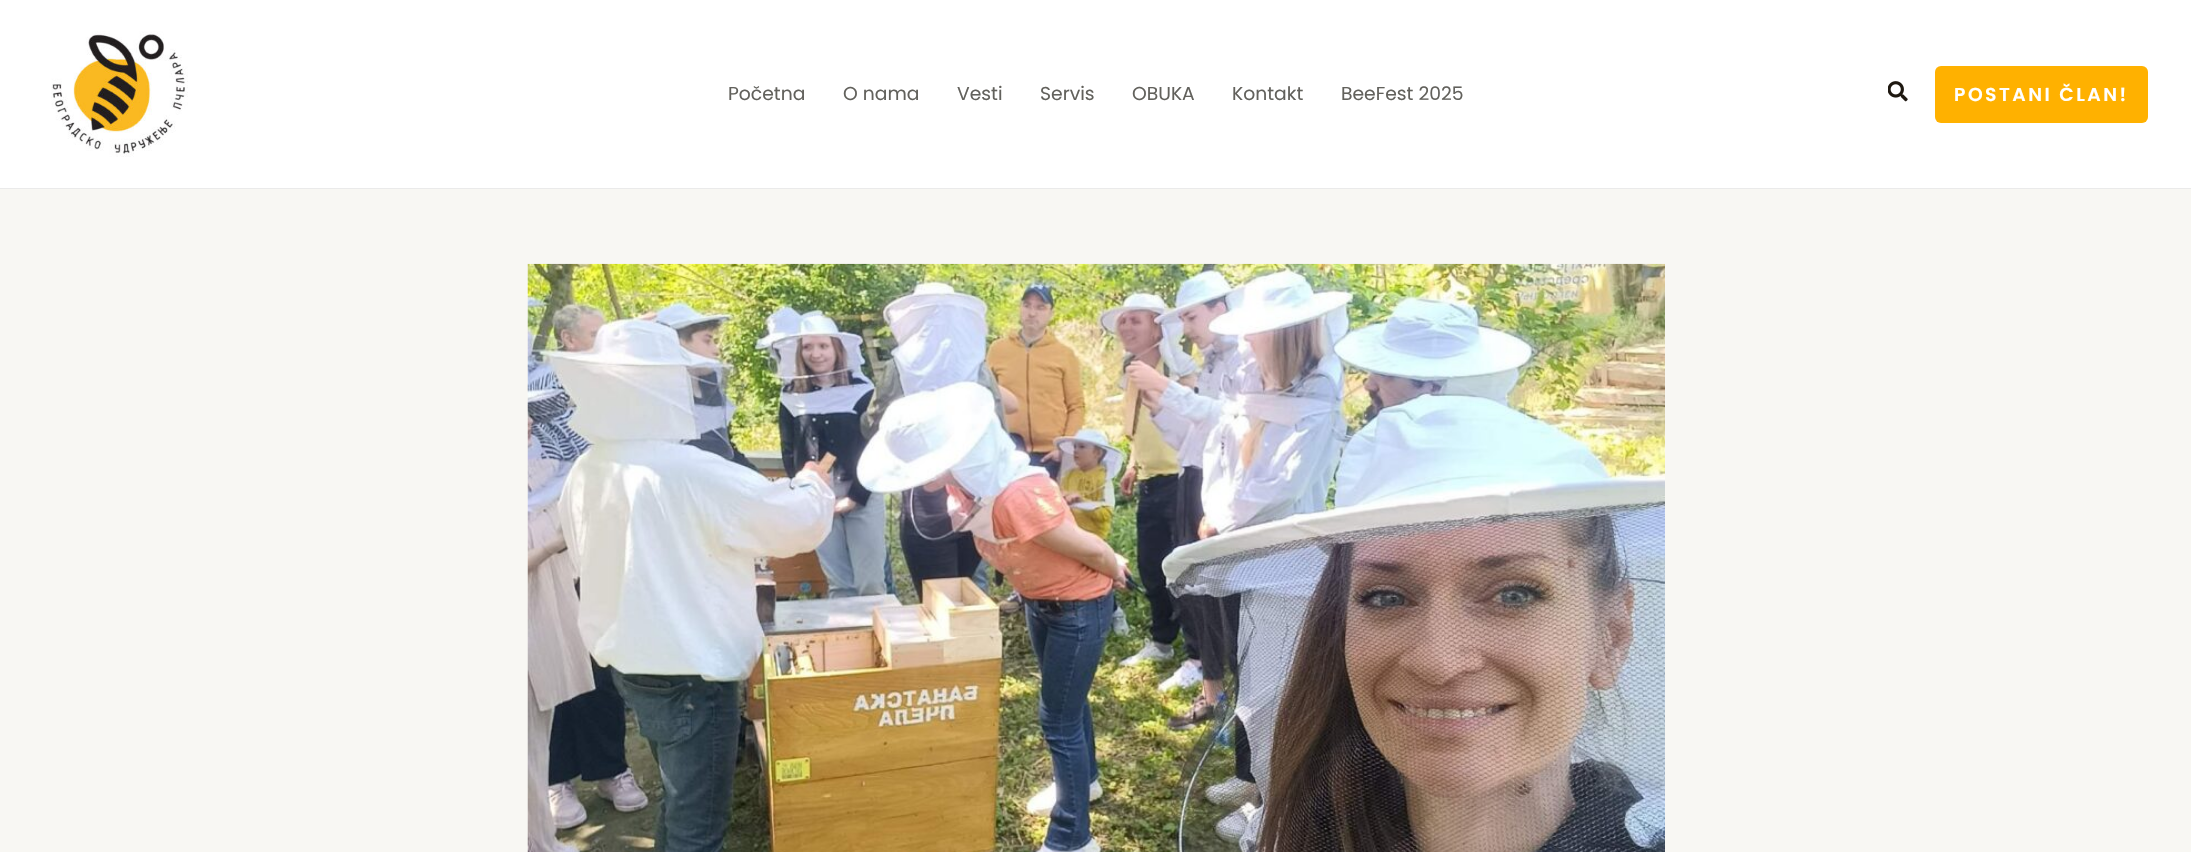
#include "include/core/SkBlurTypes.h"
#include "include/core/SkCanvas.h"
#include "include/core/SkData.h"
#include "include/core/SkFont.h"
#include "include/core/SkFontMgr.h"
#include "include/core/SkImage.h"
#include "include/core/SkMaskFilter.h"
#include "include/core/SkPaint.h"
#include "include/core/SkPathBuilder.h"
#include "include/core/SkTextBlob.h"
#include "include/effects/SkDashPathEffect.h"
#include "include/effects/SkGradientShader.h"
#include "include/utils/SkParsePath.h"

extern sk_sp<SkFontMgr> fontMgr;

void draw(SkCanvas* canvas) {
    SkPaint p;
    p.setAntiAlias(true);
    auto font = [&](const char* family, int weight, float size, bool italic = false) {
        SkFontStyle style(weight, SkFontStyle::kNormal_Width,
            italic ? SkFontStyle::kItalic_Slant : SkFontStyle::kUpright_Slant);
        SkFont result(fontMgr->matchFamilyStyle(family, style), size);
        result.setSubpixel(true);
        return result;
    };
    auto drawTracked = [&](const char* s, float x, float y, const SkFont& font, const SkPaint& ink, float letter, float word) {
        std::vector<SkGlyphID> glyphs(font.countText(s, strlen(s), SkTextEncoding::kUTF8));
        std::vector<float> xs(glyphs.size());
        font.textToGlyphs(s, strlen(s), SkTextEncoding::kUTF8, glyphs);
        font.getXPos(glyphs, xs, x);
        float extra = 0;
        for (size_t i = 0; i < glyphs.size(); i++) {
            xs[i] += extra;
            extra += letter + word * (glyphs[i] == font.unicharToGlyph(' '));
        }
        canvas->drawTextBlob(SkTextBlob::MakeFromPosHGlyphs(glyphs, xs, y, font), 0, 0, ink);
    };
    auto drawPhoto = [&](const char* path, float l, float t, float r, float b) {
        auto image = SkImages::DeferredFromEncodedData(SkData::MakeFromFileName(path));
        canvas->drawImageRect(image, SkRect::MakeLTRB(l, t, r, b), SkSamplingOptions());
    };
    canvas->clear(0xFFF8F7F3);
    p.setColor(0xFFFFFFFF);
    canvas->drawRect(SkRect::MakeLTRB(0, 0, 2191, 188), p);
    p.setColor(0xFFEAEAEA);
    canvas->drawRect(SkRect::MakeLTRB(0, 188, 2191, 189), p);
    drawPhoto("media/1.png", 51, 31, 188, 157);
    auto font1 = font("Poppins", 400, 18.75f);
    p.setColor(0xFF62615C);
    {
        const struct { const char* s; float x, y; } items[] = {
            {"Početna", 728, 100},
            {"O nama", 843, 100},
            {"Vesti", 957, 100},
            {"Servis", 1040, 100},
            {"OBUKA", 1132, 100},
            {"Kontakt", 1232, 100},
            {"BeeFest 2025", 1341, 100},
        };
        for (auto [s, x, y] : items) {
            canvas->drawString(s, x, y, font1, p);
        }
    }
    drawPhoto("media/2.png", 1888, 81, 1908, 102);
    p.setColor(0xFFFFB100);
    canvas->drawRoundRect(SkRect::MakeLTRB(1935, 66, 2148, 123), 6, 6, p);
    auto font2 = font("Poppins", 600, 18.75f);
    p.setColor(0xFFFFFFFF);
    drawTracked("POSTANI ČLAN!", 1954, 101, font2, p, 2.5f, 0);
    drawPhoto("media/3.png", 527, 263, 1665, 852);
}
